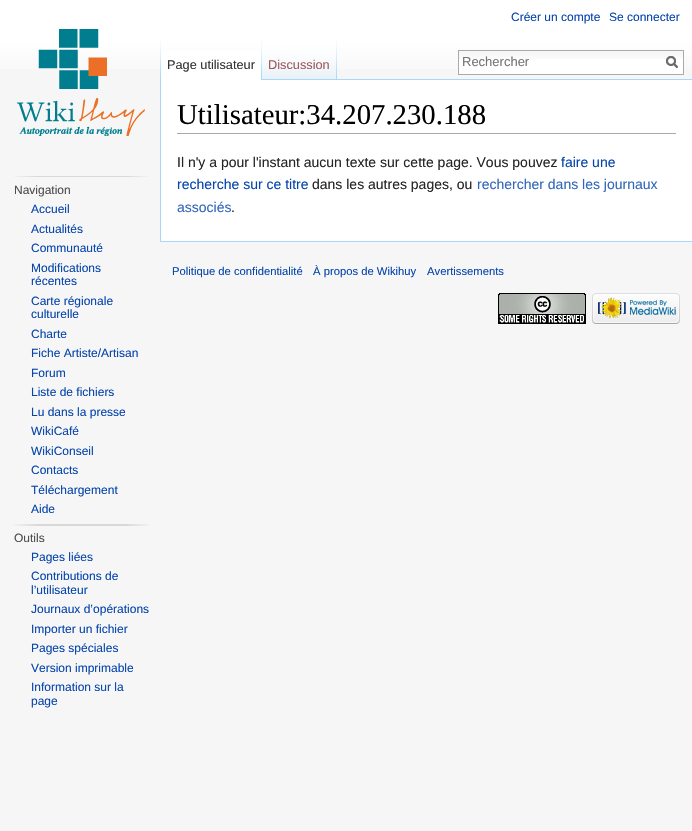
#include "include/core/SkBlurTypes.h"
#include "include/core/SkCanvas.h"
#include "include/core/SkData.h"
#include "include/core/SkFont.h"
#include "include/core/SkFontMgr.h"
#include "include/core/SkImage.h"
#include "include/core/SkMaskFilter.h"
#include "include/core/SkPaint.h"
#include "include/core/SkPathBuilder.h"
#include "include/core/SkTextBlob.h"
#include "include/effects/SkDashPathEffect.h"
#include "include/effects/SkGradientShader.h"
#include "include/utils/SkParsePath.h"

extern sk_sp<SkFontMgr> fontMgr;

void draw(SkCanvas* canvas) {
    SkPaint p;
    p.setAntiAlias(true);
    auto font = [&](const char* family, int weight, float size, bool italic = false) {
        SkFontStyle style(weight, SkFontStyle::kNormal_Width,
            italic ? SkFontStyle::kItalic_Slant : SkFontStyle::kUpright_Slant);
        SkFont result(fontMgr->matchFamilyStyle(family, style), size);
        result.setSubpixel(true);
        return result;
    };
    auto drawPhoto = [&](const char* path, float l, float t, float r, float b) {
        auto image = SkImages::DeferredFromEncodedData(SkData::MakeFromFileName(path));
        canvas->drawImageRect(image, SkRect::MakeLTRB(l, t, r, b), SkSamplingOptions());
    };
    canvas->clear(0xFFF6F6F6);
    {
        const SkColor colors[] = {0xFFFFFFFF, 0xFFF6F6F6};
        const float stops[] = {0.5f, 1};
        const SkPoint ends[] = {{346, 0}, {346, 80}};
        p.setShader(SkGradientShader::MakeLinear(ends, colors, stops, 2, SkTileMode::kClamp));
        p.setAlpha(255);
    }
    canvas->drawRect(SkRect::MakeLTRB(0, 0, 692, 69), p);
    auto font1 = font("Liberation Sans", 400, 12);
    p.setShader(nullptr);
    p.setColor(0xFF0645AD);
    canvas->drawString("Créer un compte", 511, 21, font1, p);
    canvas->drawString("Se connecter", 609, 21, font1, p);
    drawPhoto("media/1.png", 160, 40, 161, 79);
    p.setColor(0xFFFFFFFF);
    canvas->drawRect(SkRect::MakeLTRB(161, 51, 261, 80), p);
    drawPhoto("media/2.png", 261, 40, 262, 80);
    auto font2 = font("Liberation Sans", 400, 12.75f);
    p.setColor(0xFF333333);
    canvas->drawString("Page utilisateur", 167, 69, font2, p);
    drawPhoto("media/3.png", 262, 40, 337, 80);
    drawPhoto("media/4.png", 336, 40, 337, 79);
    p.setColor(0xFFA55858);
    canvas->drawString("Discussion", 268, 69, font2, p);
    p.setColor(0xFFFFFFFF);
    canvas->drawRect(SkRect::MakeLTRB(459, 59, 683, 74), p);
    drawPhoto("media/5.png", 459, 51, 683, 59);
    p.setStyle(SkPaint::kStroke_Style);
    p.setStrokeWidth(1);
    p.setColor(0xFFAAAAAA);
    canvas->drawRect(SkRect::MakeLTRB(458.5f, 50.5f, 683.5f, 74.5f), p);
    auto font3 = font("Liberation Sans", 400, 13);
    p.setStyle(SkPaint::kFill_Style);
    p.setColor(0xFF757575);
    canvas->drawString("Rechercher", 462, 66, font3, p);
    p.setStyle(SkPaint::kStroke_Style);
    p.setStrokeWidth(2);
    p.setColor(0xFF6C6C6C);
    canvas->drawPath(SkPathBuilder().moveTo(677.5f, 67.5f).lineTo(673.5f, 63.5f).detach(), p);
    canvas->drawCircle(671, 61, 4, p);
    canvas->drawPath(SkPathBuilder().moveTo(677.5f, 67.5f).lineTo(673.5f, 63.5f).detach(), p);
    canvas->drawCircle(671, 61, 4, p);
    drawPhoto("media/6.png", 17, 29, 145, 136);
    drawPhoto("media/7.png", 14, 176, 149, 177);
    p.setStyle(SkPaint::kFill_Style);
    p.setColor(0xFF4D4D4D);
    canvas->drawString("Navigation", 14, 194, font1, p);
    p.setColor(0xFF0645AD);
    {
        const struct { const char* s; float x, y; } items[] = {
            {"Accueil", 31, 213},
            {"Actualités", 31, 233},
            {"Communauté", 31, 252},
            {"Modifications", 31, 272},
            {"récentes", 31, 285},
            {"Carte régionale", 31, 305},
            {"culturelle", 31, 318},
            {"Charte", 31, 338},
            {"Fiche Artiste/Artisan", 31, 357},
            {"Forum", 31, 377},
            {"Liste de fichiers", 31, 396},
            {"Lu dans la presse", 31, 416},
            {"WikiCafé", 31, 435},
            {"WikiConseil", 31, 455},
            {"Contacts", 31, 474},
            {"Téléchargement", 31, 494},
            {"Aide", 31, 513},
        };
        for (auto [s, x, y] : items) {
            canvas->drawString(s, x, y, font1, p);
        }
    }
    drawPhoto("media/8.png", 14, 524, 149, 526);
    p.setColor(0xFF4D4D4D);
    canvas->drawString("Outils", 14, 542, font1, p);
    p.setColor(0xFF0645AD);
    {
        const struct { const char* s; float x, y; } items[] = {
            {"Pages liées", 31, 561},
            {"Contributions de", 31, 580},
            {"l’utilisateur", 31, 594},
            {"Journaux d’opérations", 31, 613},
            {"Importer un fichier", 31, 633},
            {"Pages spéciales", 31, 652},
            {"Version imprimable", 31, 672},
            {"Information sur la", 31, 691},
            {"page", 31, 705},
        };
        for (auto [s, x, y] : items) {
            canvas->drawString(s, x, y, font1, p);
        }
    }
    {
        const struct { float l, t, r, b; SkColor color; } items[] = {
            {161, 80, 692, 241, 0xFFFFFFFF},
            {337, 79, 692, 80, 0xFFA7D7F9},
            {160, 241, 692, 242, 0xFFA7D7F9},
            {160, 79, 161, 242, 0xFFA7D7F9},
            {177, 133, 676, 134, 0xFFAAAAAA},
        };
        for (auto [l, t, r, b, color] : items) {
            p.setColor(color);
            canvas->drawRect(SkRect::MakeLTRB(l, t, r, b), p);
        }
    }
    auto font4 = font("Liberation Serif", 400, 28.75f);
    p.setColor(0xFF000000);
    canvas->drawString("Utilisateur:34.207.230.188", 177, 124, font4, p);
    auto font5 = font("Liberation Sans", 400, 14);
    p.setColor(0xFF252525);
    canvas->drawString("Il n'y a pour l'instant aucun texte sur cette page. Vous pouvez", 177, 167, font5, p);
    p.setColor(0xFF0645AD);
    canvas->drawString("faire une", 561, 167, font5, p);
    canvas->drawString("recherche sur ce titre", 177, 189, font5, p);
    p.setColor(0xFF252525);
    canvas->drawString("dans les autres pages, ou", 312, 189, font5, p);
    p.setColor(0xFF3366BB);
    canvas->drawString("rechercher dans les journaux", 477, 189, font5, p);
    canvas->drawString("associés", 177, 212, font5, p);
    p.setColor(0xFF252525);
    canvas->drawString(".", 231, 212, font5, p);
    auto font6 = font("Liberation Sans", 400, 11.25f);
    p.setColor(0xFF0645AD);
    {
        const struct { const char* s; float x, y; } items[] = {
            {"Politique de confidentialité", 172, 275},
            {"À propos de Wikihuy", 313, 275},
            {"Avertissements", 427, 275},
        };
        for (auto [s, x, y] : items) {
            canvas->drawString(s, x, y, font6, p);
        }
    }
    drawPhoto("media/9.png", 498, 293, 586, 324);
    drawPhoto("media/10.png", 592, 293, 680, 324);
}
